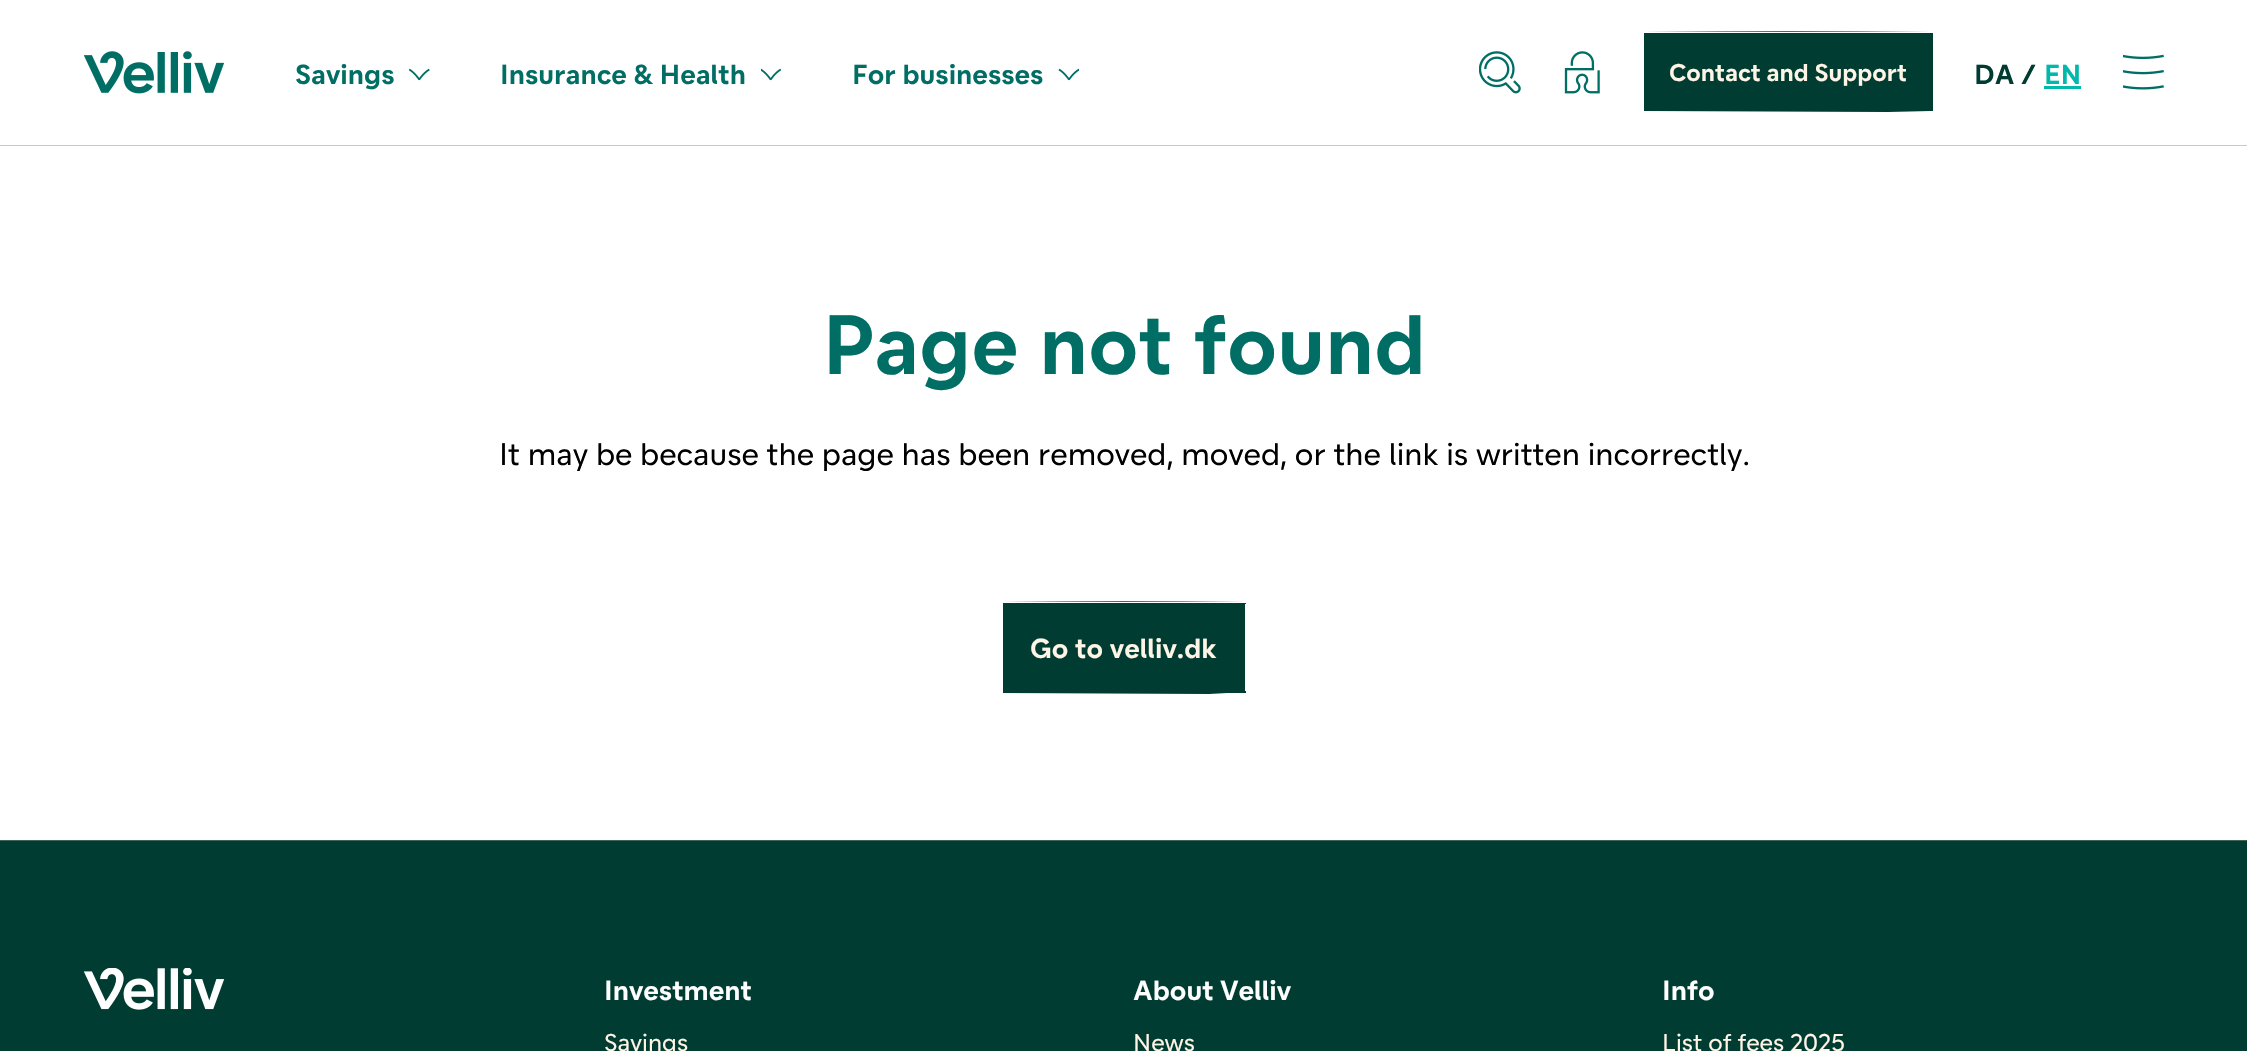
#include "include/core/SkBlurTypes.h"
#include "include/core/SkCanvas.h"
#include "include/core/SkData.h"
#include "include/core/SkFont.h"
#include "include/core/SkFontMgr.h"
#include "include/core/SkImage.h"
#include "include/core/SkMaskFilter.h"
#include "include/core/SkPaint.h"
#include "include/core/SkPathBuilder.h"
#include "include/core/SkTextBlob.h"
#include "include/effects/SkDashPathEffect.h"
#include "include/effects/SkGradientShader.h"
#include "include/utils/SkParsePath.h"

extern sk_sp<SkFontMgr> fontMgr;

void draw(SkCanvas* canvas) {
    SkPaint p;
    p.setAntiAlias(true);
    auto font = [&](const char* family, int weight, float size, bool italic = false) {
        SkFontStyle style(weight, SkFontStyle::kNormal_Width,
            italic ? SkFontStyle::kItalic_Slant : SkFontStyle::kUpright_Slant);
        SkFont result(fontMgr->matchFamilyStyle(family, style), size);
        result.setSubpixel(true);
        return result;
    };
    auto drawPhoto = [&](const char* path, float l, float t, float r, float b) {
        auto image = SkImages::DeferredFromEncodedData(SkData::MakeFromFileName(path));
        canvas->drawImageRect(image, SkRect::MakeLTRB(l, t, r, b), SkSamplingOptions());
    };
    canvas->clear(0xFFFFFFFF);
    p.setColor(0xFFBFCECC);
    canvas->drawRect(SkRect::MakeLTRB(0, 145, 2247, 146), p);
    drawPhoto("media/1.png", 84, 51, 224, 94);
    auto font1 = font("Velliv", 700, 28);
    p.setColor(0xFF006E64);
    canvas->drawString("Savings", 295, 84, font1, p);
    drawPhoto("media/2.png", 409, 68, 430, 81);
    canvas->drawString("Insurance & Health", 500, 84, font1, p);
    drawPhoto("media/3.png", 761, 68, 781, 81);
    canvas->drawString("For businesses", 852, 84, font1, p);
    drawPhoto("media/4.png", 1058, 68, 1079, 81);
    drawPhoto("media/5.png", 1479, 51, 1521, 94);
    drawPhoto("media/6.png", 1564, 51, 1600, 94);
    p.setColor(0xFF003C32);
    canvas->drawRect(SkRect::MakeLTRB(1644, 33, 1933, 111), p);
    canvas->drawPath(SkPathBuilder().moveTo(1644, 32).cubicTo(1740, 31, 1836, 31, 1931, 32).close().detach(), p);
    auto font2 = font("Velliv", 700, 24.5f);
    p.setColor(0xFFFFF5E6);
    canvas->drawString("Contact and Support", 1669, 81, font2, p);
    p.setColor(0xFF003C32);
    canvas->drawPath(SkPathBuilder().moveTo(1931, 111).lineTo(1888, 112).lineTo(1644, 111).close().detach(), p);
    canvas->drawString("DA /", 1974, 84, font1, p);
    p.setColor(0xFF00B9AA);
    canvas->drawString("EN", 2044, 84, font1, p);
    canvas->drawRect(SkRect::MakeLTRB(2044, 86, 2081, 89), p);
    drawPhoto("media/7.png", 2123, 54, 2164, 90);
    auto font3 = font("Velliv", 700, 85);
    p.setColor(0xFF006E64);
    canvas->drawString("Page not found", 822, 374, font3, p);
    auto font4 = font("Velliv", 400, 31.6f);
    p.setColor(0xFF000000);
    canvas->drawString("It may be because the page has been removed, moved, or the link is written incorrectly.", 499, 465, font4, p);
    p.setColor(0xFF003C32);
    canvas->drawRect(SkRect::MakeLTRB(1003, 604, 1245, 691), p);
    canvas->drawPath(SkPathBuilder().moveTo(1002, 602).cubicTo(1084, 601, 1165, 601, 1246, 602).close().detach(), p);
    canvas->drawRect(SkRect::MakeLTRB(1003, 603, 1246, 604), p);
    p.setColor(0xFFFFF5E6);
    canvas->drawString("Go to velliv.dk", 1030, 658, font1, p);
    p.setColor(0xFF003C32);
    canvas->drawRect(SkRect::MakeLTRB(1003, 691, 1246, 693), p);
    canvas->drawPath(SkPathBuilder().moveTo(1246, 692).lineTo(1209, 694).lineTo(1002, 693).close().detach(), p);
    canvas->drawRect(SkRect::MakeLTRB(0, 841, 2247, 1051), p);
    p.setColor(0xFF406454);
    canvas->drawRect(SkRect::MakeLTRB(0, 840, 2247, 841), p);
    drawPhoto("media/8.png", 84, 968, 225, 1010);
    p.setColor(0xFFFFFFFF);
    canvas->drawString("Investment", 604, 1000, font1, p);
    auto font5 = font("Velliv", 400, 24.5f);
    p.setColor(0xFFFFF5E6);
    canvas->drawString("Savings", 604, 1051, font5, p);
    p.setColor(0xFFFFFFFF);
    canvas->drawString("About Velliv", 1133, 1000, font1, p);
    p.setColor(0xFFFFF5E6);
    canvas->drawString("News", 1133, 1051, font5, p);
    p.setColor(0xFFFFFFFF);
    canvas->drawString("Info", 1662, 1000, font1, p);
    p.setColor(0xFFFFF5E6);
    canvas->drawString("List of fees 2025", 1662, 1051, font5, p);
}
